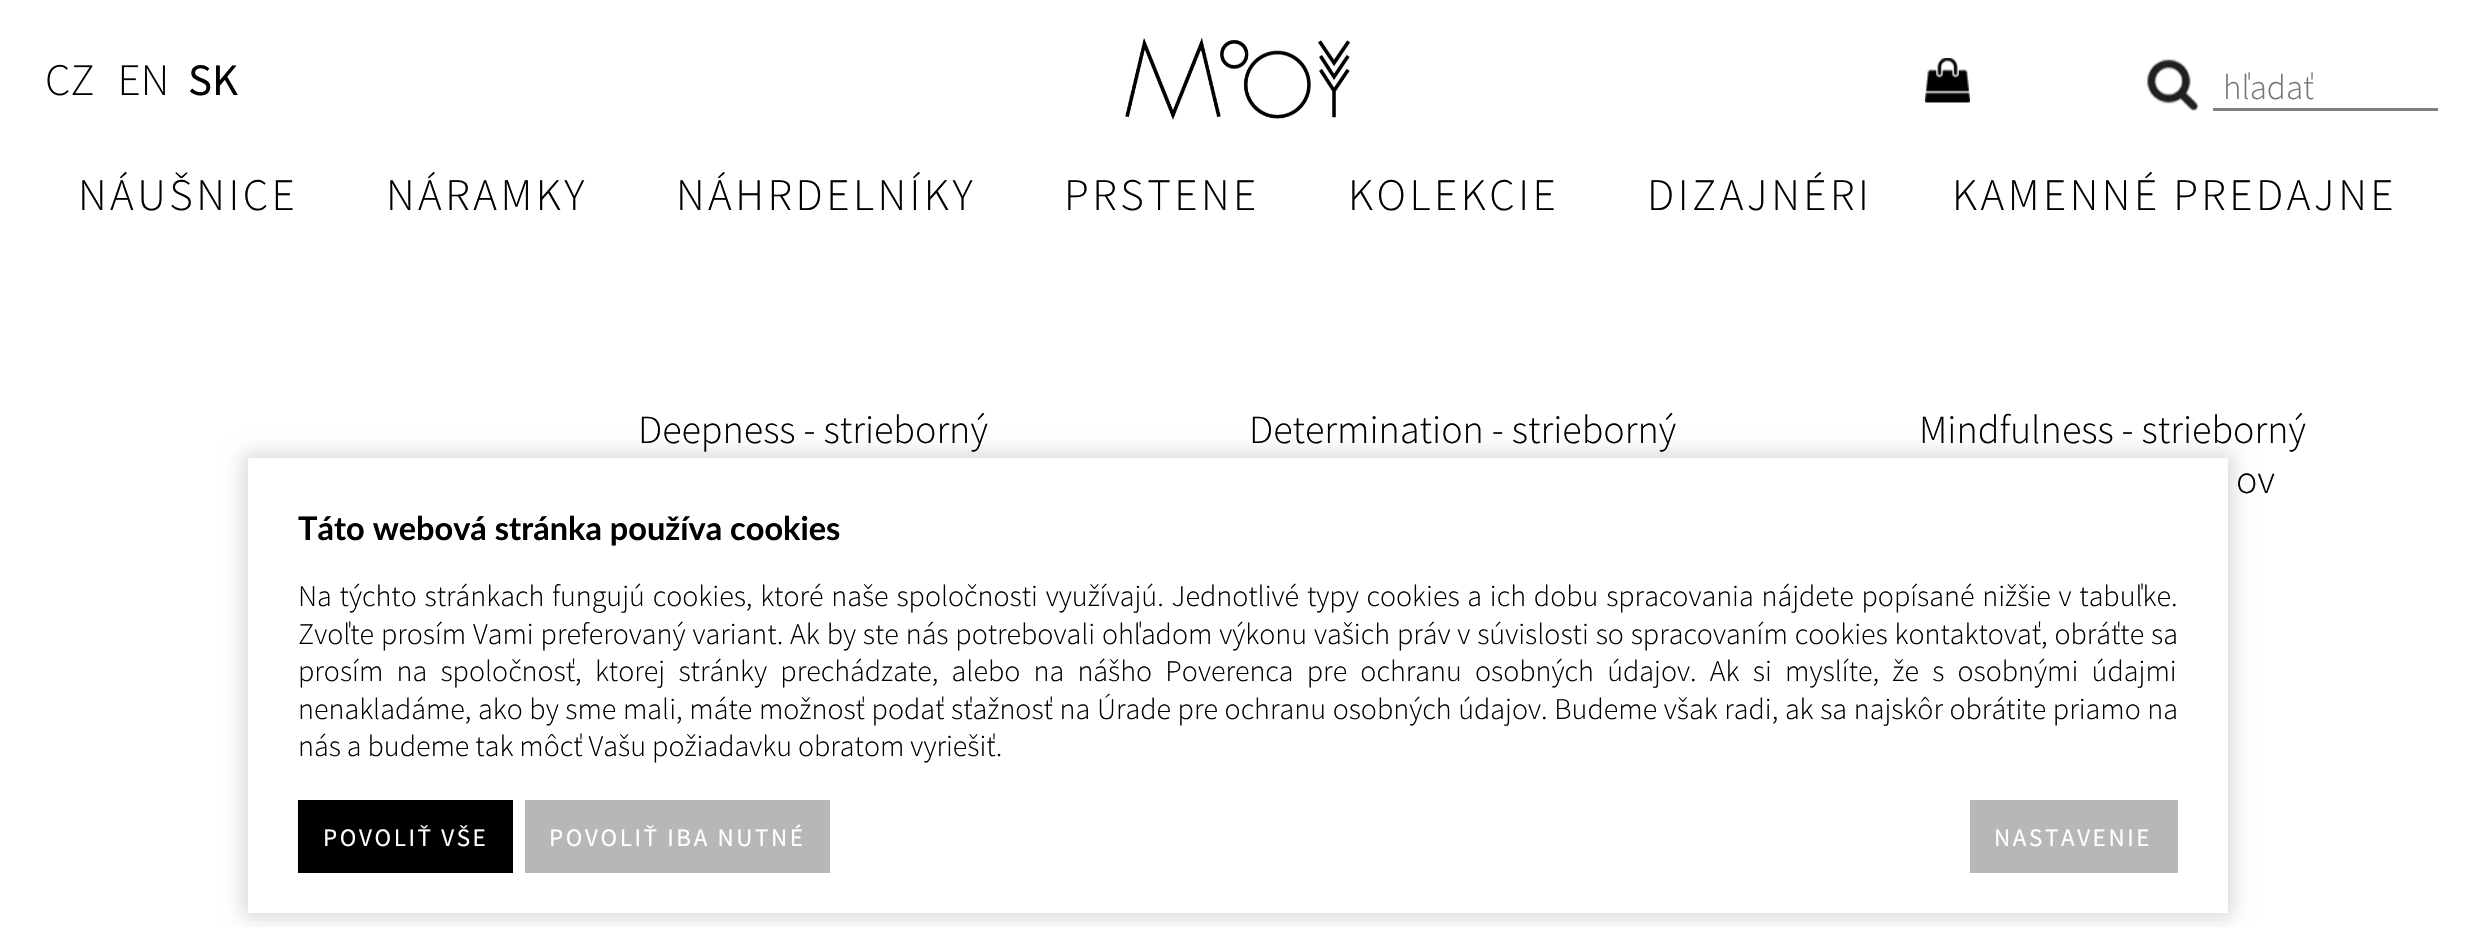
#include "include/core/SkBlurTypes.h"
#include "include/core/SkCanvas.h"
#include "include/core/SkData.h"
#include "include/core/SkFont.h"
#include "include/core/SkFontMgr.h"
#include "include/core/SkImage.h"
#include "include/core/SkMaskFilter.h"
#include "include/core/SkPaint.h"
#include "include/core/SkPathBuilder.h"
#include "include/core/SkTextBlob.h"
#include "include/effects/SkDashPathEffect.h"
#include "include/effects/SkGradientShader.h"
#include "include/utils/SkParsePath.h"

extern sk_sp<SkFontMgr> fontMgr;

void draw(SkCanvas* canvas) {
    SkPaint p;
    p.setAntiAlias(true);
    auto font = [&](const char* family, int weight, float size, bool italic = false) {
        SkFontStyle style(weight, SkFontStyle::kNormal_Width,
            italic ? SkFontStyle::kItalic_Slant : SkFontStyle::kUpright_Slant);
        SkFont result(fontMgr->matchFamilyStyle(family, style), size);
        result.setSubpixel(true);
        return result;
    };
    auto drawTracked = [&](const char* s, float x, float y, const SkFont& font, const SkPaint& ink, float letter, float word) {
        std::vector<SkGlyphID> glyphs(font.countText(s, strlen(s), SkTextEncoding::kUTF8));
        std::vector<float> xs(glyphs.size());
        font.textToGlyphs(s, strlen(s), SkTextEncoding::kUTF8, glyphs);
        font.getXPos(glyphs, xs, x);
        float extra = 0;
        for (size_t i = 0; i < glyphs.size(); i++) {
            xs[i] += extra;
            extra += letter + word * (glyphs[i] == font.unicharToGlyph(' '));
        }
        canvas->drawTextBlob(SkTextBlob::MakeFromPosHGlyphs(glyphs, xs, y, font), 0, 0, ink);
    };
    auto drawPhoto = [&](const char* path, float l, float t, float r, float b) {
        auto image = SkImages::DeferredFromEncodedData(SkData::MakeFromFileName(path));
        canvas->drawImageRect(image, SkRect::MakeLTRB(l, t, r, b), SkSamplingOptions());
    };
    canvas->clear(0xFFFFFFFF);
    drawPhoto("media/1.png", 47, 64, 93, 96);
    drawPhoto("media/2.png", 121, 65, 165, 95);
    auto font1 = font("Source Sans Pro", 400, 45);
    p.setColor(0xFF000000);
    canvas->drawString("SK", 188, 95, font1, p);
    drawPhoto("media/3.png", 1125, 37, 1350, 120);
    drawPhoto("media/4.png", 1925, 58, 1970, 103);
    drawPhoto("media/5.png", 2147, 59, 2198, 111);
    p.setColor(0xFF7F7F7F);
    canvas->drawRect(SkRect::MakeLTRB(2213, 108, 2438, 111), p);
    auto font2 = font("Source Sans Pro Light", 300, 35);
    p.setColor(0xFF757575);
    canvas->drawString("hľadať", 2223, 99, font2, p);
    auto font3 = font("Source Sans Pro Light", 300, 45);
    p.setColor(0xFF000000);
    {
        const struct { const char* s; float x, y; } items[] = {
            {"NÁUŠNICE", 78, 210},
            {"NÁRAMKY", 386, 210},
            {"NÁHRDELNÍKY", 676, 210},
            {"PRSTENE", 1064, 210},
            {"KOLEKCIE", 1348, 210},
            {"DIZAJNÉRI", 1647, 210},
            {"KAMENNÉ PREDAJNE", 1952, 210},
        };
        for (auto [s, x, y] : items) {
            drawTracked(s, x, y, font3, p, 3.5f, 0);
        }
    }
    auto font4 = font("Source Sans Pro Light", 300, 40);
    {
        const struct { const char* s; float x, y; } items[] = {
            {"Deepness - strieborný", 638, 443},
            {"Determination - strieborný", 1249, 443},
            {"Mindfulness - strieborný", 1919, 443},
            {"ov", 2236, 493},
        };
        for (auto [s, x, y] : items) {
            canvas->drawString(s, x, y, font4, p);
        }
    }
    canvas->save();
    canvas->clipPath(SkPathBuilder(SkPathFillType::kEvenOdd).moveTo(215, 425).lineTo(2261, 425).lineTo(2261, 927).lineTo(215, 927).close().moveTo(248, 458).lineTo(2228, 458).lineTo(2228, 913).lineTo(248, 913).close().detach(), true);
    p.setColor(0x26000000);
    p.setMaskFilter(SkMaskFilter::MakeBlur(kNormal_SkBlurStyle, 9));
    canvas->drawRect(SkRect::MakeLTRB(243, 453, 2233, 918), p);
    p.setMaskFilter(nullptr);
    canvas->restore();
    p.setColor(0xE6FFFFFF);
    canvas->drawRect(SkRect::MakeLTRB(248, 458, 2228, 913), p);
    auto font5 = font("Lato", 700, 32.5f);
    p.setColor(0xFF000000);
    canvas->drawString("Táto webová stránka používa cookies", 298, 540, font5, p);
    auto font6 = font("Source Sans Pro Light", 300, 30);
    drawTracked("Na týchto stránkach fungujú cookies, ktoré naše spoločnosti využívajú. Jednotlivé typy cookies a ich dobu spracovania nájdete popísané nižšie v tabuľke.", 298, 606, font6, p, 0, 1.8f);
    drawTracked("Zvoľte prosím Vami preferovaný variant. Ak by ste nás potrebovali ohľadom výkonu vašich práv v súvislosti so spracovaním cookies kontaktovať, obráťte sa", 298, 644, font6, p, 0, 0.85f);
    drawTracked("prosím na spoločnosť, ktorej stránky prechádzate, alebo na nášho Poverenca pre ochranu osobných údajov. Ak si myslíte, že s osobnými údajmi", 298, 681, font6, p, 0, 7.25f);
    drawTracked("nenakladáme, ako by sme mali, máte možnosť podať sťažnosť na Úrade pre ochranu osobných údajov. Budeme však radi, ak sa najskôr obrátite priamo na", 298, 719, font6, p, 0, 0.65f);
    canvas->drawString("nás a budeme tak môcť Vašu požiadavku obratom vyriešiť.", 298, 756, font6, p);
    canvas->drawRect(SkRect::MakeLTRB(298, 800, 513, 873), p);
    auto font7 = font("Source Sans Pro", 400, 25);
    p.setColor(0xFFFFFFFF);
    drawTracked("POVOLIŤ VŠE", 323, 846, font7, p, 2.6f, 0);
    p.setColor(0xFFB7B7B7);
    canvas->drawRect(SkRect::MakeLTRB(525, 800, 830, 873), p);
    p.setColor(0xFFFFFFFF);
    drawTracked("POVOLIŤ IBA NUTNÉ", 549, 846, font7, p, 2.6f, 0);
    p.setColor(0xFFB7B7B7);
    canvas->drawRect(SkRect::MakeLTRB(1970, 800, 2178, 873), p);
    p.setColor(0xFFFFFFFF);
    drawTracked("NASTAVENIE", 1994, 846, font7, p, 2.6f, 0);
}
